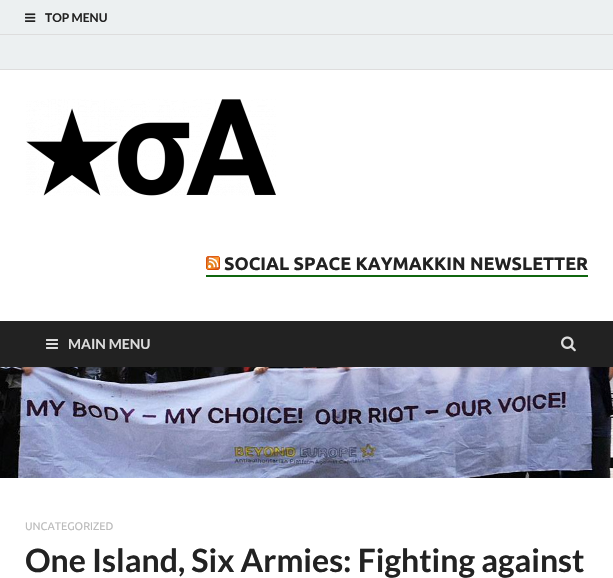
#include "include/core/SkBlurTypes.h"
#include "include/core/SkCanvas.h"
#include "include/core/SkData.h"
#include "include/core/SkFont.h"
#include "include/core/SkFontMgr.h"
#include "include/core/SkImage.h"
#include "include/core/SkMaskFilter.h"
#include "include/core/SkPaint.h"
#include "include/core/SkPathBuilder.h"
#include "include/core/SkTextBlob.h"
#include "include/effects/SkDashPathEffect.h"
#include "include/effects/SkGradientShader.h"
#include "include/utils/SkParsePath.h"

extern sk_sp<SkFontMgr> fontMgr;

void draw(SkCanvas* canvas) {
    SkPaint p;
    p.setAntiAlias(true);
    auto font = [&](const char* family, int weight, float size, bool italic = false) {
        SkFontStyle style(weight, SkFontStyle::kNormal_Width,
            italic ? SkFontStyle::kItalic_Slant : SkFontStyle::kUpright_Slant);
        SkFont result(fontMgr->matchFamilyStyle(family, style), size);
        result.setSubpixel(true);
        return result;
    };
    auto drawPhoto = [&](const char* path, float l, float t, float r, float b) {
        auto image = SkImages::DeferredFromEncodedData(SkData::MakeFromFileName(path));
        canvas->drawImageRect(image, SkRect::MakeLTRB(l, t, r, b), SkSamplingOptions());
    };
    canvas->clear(0xFFFFFFFF);
    p.setColor(0xFFECF0F1);
    canvas->drawRect(SkRect::MakeLTRB(0, 0, 613, 34), p);
    p.setColor(0xFFDDDDDD);
    canvas->drawRect(SkRect::MakeLTRB(0, 34, 613, 35), p);
    drawPhoto("media/1.png", 25, 13, 36, 22);
    auto font1 = font("Lato", 700, 12);
    p.setColor(0xFF222222);
    canvas->drawString("TOP MENU", 45, 22, font1, p);
    p.setColor(0xFFECF0F1);
    canvas->drawRect(SkRect::MakeLTRB(0, 35, 613, 69), p);
    p.setColor(0xFFDDDDDD);
    canvas->drawRect(SkRect::MakeLTRB(0, 69, 613, 70), p);
    drawPhoto("media/2.png", 26, 99, 276, 196);
    p.setColor(0xFF10660F);
    canvas->drawRect(SkRect::MakeLTRB(206, 275, 588, 277), p);
    drawPhoto("media/3.png", 206, 256, 220, 270);
    auto font2 = font("Ubuntu", 700, 18);
    p.setColor(0xFF222222);
    canvas->drawString("SOCIAL SPACE KAYMAKKIN NEWSLETTER", 224, 270, font2, p);
    canvas->drawRect(SkRect::MakeLTRB(0, 321, 613, 367), p);
    drawPhoto("media/4.png", 46, 339, 58, 349);
    auto font3 = font("Lato", 700, 14);
    p.setColor(0xFFDDDDDD);
    canvas->drawString("MAIN MENU", 68, 349, font3, p);
    drawPhoto("media/5.png", 561, 336, 576, 352);
    drawPhoto("media/6.png", 0, 367, 613, 478);
    auto font4 = font("Ubuntu", 400, 11);
    p.setColor(0xFFBBBBBB);
    canvas->drawString("UNCATEGORIZED", 25, 530, font4, p);
    auto font5 = font("Lato", 700, 32);
    p.setColor(0xFF222222);
    canvas->drawString("One Island, Six Armies: Fighting against", 25, 572, font5, p);
}
